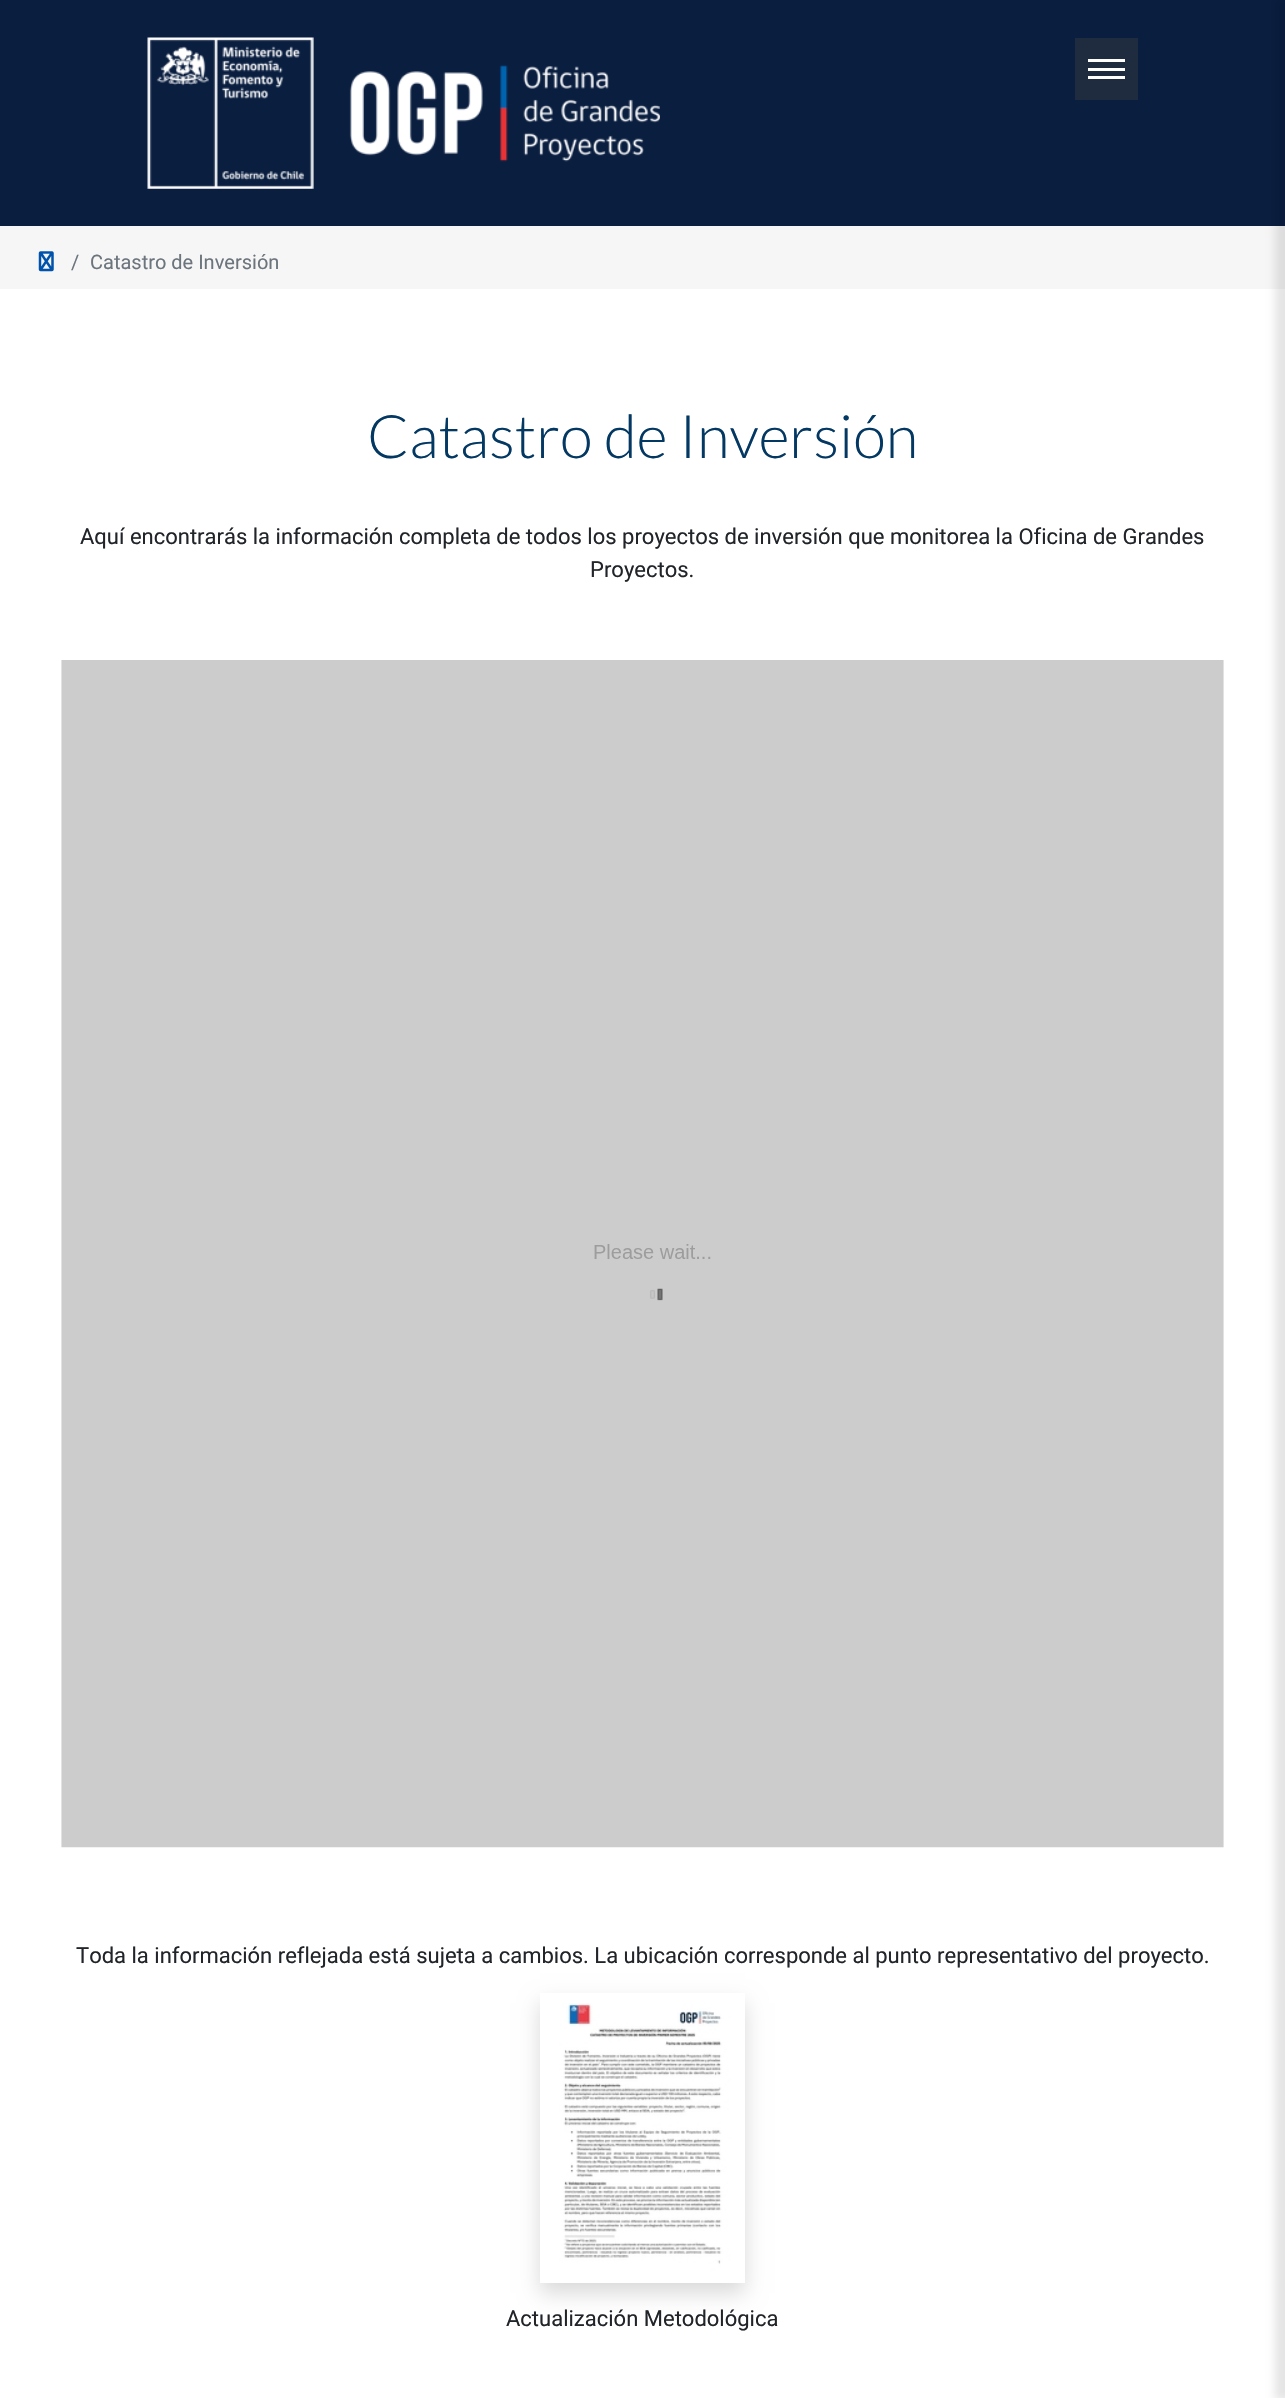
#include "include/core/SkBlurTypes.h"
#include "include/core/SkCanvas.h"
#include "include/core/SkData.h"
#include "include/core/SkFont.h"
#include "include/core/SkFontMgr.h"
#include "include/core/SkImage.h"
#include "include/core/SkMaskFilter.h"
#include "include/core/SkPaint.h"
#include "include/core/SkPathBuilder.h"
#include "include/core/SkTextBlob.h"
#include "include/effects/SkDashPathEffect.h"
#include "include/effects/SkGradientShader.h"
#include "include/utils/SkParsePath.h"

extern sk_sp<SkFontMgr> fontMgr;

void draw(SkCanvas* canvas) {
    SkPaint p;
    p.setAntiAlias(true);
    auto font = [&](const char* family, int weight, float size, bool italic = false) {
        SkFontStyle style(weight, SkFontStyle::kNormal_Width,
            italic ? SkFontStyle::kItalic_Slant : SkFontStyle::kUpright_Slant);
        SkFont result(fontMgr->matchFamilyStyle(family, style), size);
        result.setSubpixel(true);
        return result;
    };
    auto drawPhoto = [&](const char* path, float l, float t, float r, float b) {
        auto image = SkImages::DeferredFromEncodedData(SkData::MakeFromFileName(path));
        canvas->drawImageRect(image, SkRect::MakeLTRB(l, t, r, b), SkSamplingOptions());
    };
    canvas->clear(0xFFFFFFFF);
    p.setColor(0xFF0A1E40);
    canvas->drawRect(SkRect::MakeLTRB(0, 0, 1285, 226), p);
    drawPhoto("media/1.png", 147, 37, 660, 189);
    {
        const struct { float l, t, r, b; SkColor color; } items[] = {
            {1075, 38, 1138, 100, 0xFF1F2C40},
            {1088, 59, 1125, 62, 0xFFFFFFFF},
            {1088, 68, 1125, 71, 0xFFFFFFFF},
            {1088, 76, 1125, 79, 0xFFFFFFFF},
            {0, 226, 1285, 289, 0xFFF6F6F6},
        };
        for (auto [l, t, r, b, color] : items) {
            p.setColor(color);
            canvas->drawRect(SkRect::MakeLTRB(l, t, r, b), p);
        }
    }
    drawPhoto("media/2.png", 38, 251, 54, 272);
    auto font1 = font("Roboto", 400, 20);
    p.setColor(0xFF6C757D);
    canvas->drawString("/", 71, 269, font1, p);
    canvas->drawString("Catastro de Inversión", 90, 269, font1, p);
    p.setColor(0x1A000000);
    p.setMaskFilter(SkMaskFilter::MakeBlur(kNormal_SkBlurStyle, 4.5f));
    canvas->drawRect(SkRect::MakeLTRB(1275, -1, 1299, 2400), p);
    p.setMaskFilter(nullptr);
    auto font2 = font("Lato", 300, 60);
    p.setColor(0xFF033863);
    canvas->drawString("Catastro de Inversión", 367, 458, font2, p);
    auto font3 = font("Roboto", 400, 22);
    p.setColor(0xFF212529);
    canvas->drawString("Aquí encontrarás la información completa de todos los proyectos de inversión que monitorea la Oficina de Grandes", 80, 544, font3, p);
    canvas->drawString("Proyectos.", 590, 577, font3, p);
    drawPhoto("media/3.png", 61, 660, 1224, 1848);
    canvas->drawString("Toda la información reflejada está sujeta a cambios. La ubicación corresponde al punto representativo del proyecto.", 76, 1963, font3, p);
    canvas->save();
    canvas->clipPath(SkPathBuilder(SkPathFillType::kEvenOdd).moveTo(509, 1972).lineTo(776, 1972).lineTo(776, 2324).lineTo(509, 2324).close().moveTo(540, 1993).lineTo(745, 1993).lineTo(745, 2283).lineTo(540, 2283).close().detach(), true);
    p.setColor(0x26000000);
    p.setMaskFilter(SkMaskFilter::MakeBlur(kNormal_SkBlurStyle, 10));
    canvas->drawRect(SkRect::MakeLTRB(540, 2003, 745, 2293), p);
    p.setMaskFilter(nullptr);
    canvas->restore();
    drawPhoto("media/4.png", 540, 2003, 745, 2283);
    p.setColor(0xFF212529);
    canvas->drawString("Actualización Metodológica", 506, 2326, font3, p);
}
